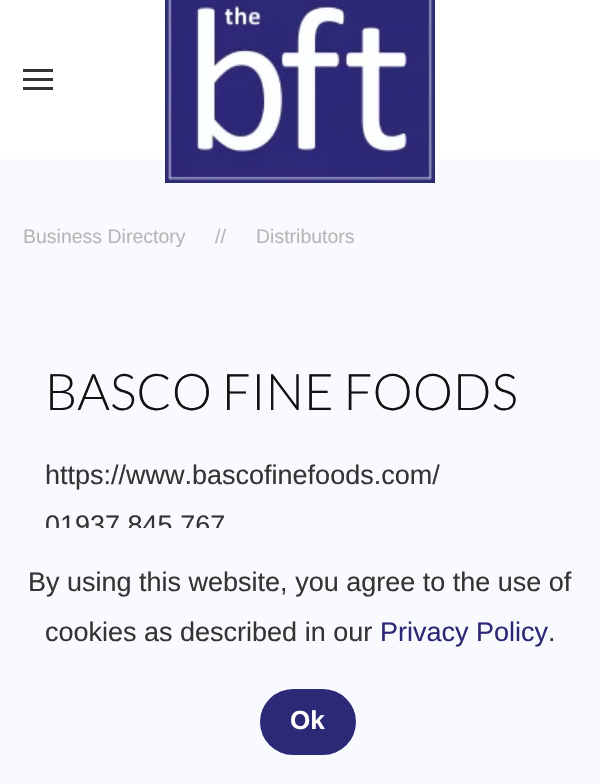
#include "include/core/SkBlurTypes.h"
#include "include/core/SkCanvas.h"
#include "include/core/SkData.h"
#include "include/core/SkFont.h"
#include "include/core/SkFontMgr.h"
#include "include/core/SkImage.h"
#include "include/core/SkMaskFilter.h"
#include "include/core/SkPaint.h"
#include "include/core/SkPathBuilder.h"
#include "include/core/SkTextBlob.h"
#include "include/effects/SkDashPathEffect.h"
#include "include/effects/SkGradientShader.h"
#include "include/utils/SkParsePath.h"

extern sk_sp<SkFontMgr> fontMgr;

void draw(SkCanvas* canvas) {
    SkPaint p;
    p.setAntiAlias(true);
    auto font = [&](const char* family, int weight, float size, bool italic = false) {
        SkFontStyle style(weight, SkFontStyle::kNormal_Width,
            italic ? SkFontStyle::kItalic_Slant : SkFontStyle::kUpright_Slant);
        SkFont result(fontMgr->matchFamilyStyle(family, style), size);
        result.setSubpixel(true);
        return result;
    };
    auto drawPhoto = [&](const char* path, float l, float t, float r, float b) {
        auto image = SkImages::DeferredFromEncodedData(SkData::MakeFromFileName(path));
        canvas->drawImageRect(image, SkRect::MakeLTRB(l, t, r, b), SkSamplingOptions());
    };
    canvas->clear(0xFFF9FAFE);
    {
        const struct { float l, t, r, b; SkColor color; } items[] = {
            {0, 0, 600, 159, 0xFFFFFFFF},
            {23, 69, 53, 72, 0xFF343434},
            {23, 78, 53, 81, 0xFF343434},
            {23, 87, 53, 90, 0xFF343434},
        };
        for (auto [l, t, r, b, color] : items) {
            p.setColor(color);
            canvas->drawRect(SkRect::MakeLTRB(l, t, r, b), p);
        }
    }
    drawPhoto("media/1.png", 165, 0, 435, 183);
    auto font1 = font("Liberation Sans", 400, 19.5f);
    p.setColor(0xFFB6B6B6);
    {
        const struct { const char* s; float x, y; } items[] = {
            {"Business Directory", 23, 243},
            {"//", 215, 243},
            {"Distributors", 256, 243},
        };
        for (auto [s, x, y] : items) {
            canvas->drawString(s, x, y, font1, p);
        }
    }
    auto font2 = font("Lato", 300, 50.5f);
    p.setColor(0xFF111111);
    canvas->drawString("BASCO FINE FOODS", 45, 410, font2, p);
    auto font3 = font("Liberation Sans", 400, 27);
    p.setColor(0xFF343434);
    canvas->drawString("https://www.bascofinefoods.com/", 45, 484, font3, p);
    canvas->drawString("01937 845 767", 45, 534, font3, p);
    p.setColor(0xFFF9FAFE);
    canvas->drawRect(SkRect::MakeLTRB(46, 528, 219, 535), p);
    p.setColor(0xFF343434);
    canvas->drawString("By using this website, you agree to the use of", 28, 591, font3, p);
    canvas->drawString("cookies as described in our", 45, 641, font3, p);
    p.setColor(0xFF2B2875);
    canvas->drawString("Privacy Policy", 380, 641, font3, p);
    p.setColor(0xFF343434);
    canvas->drawString(".", 548, 641, font3, p);
    p.setColor(0xFF2C2976);
    canvas->drawRoundRect(SkRect::MakeLTRB(260, 689, 356, 755), 33, 33, p);
    auto font4 = font("Liberation Sans", 700, 26);
    p.setColor(0xFFFFFFFF);
    canvas->drawString("Ok", 290, 729, font4, p);
}
